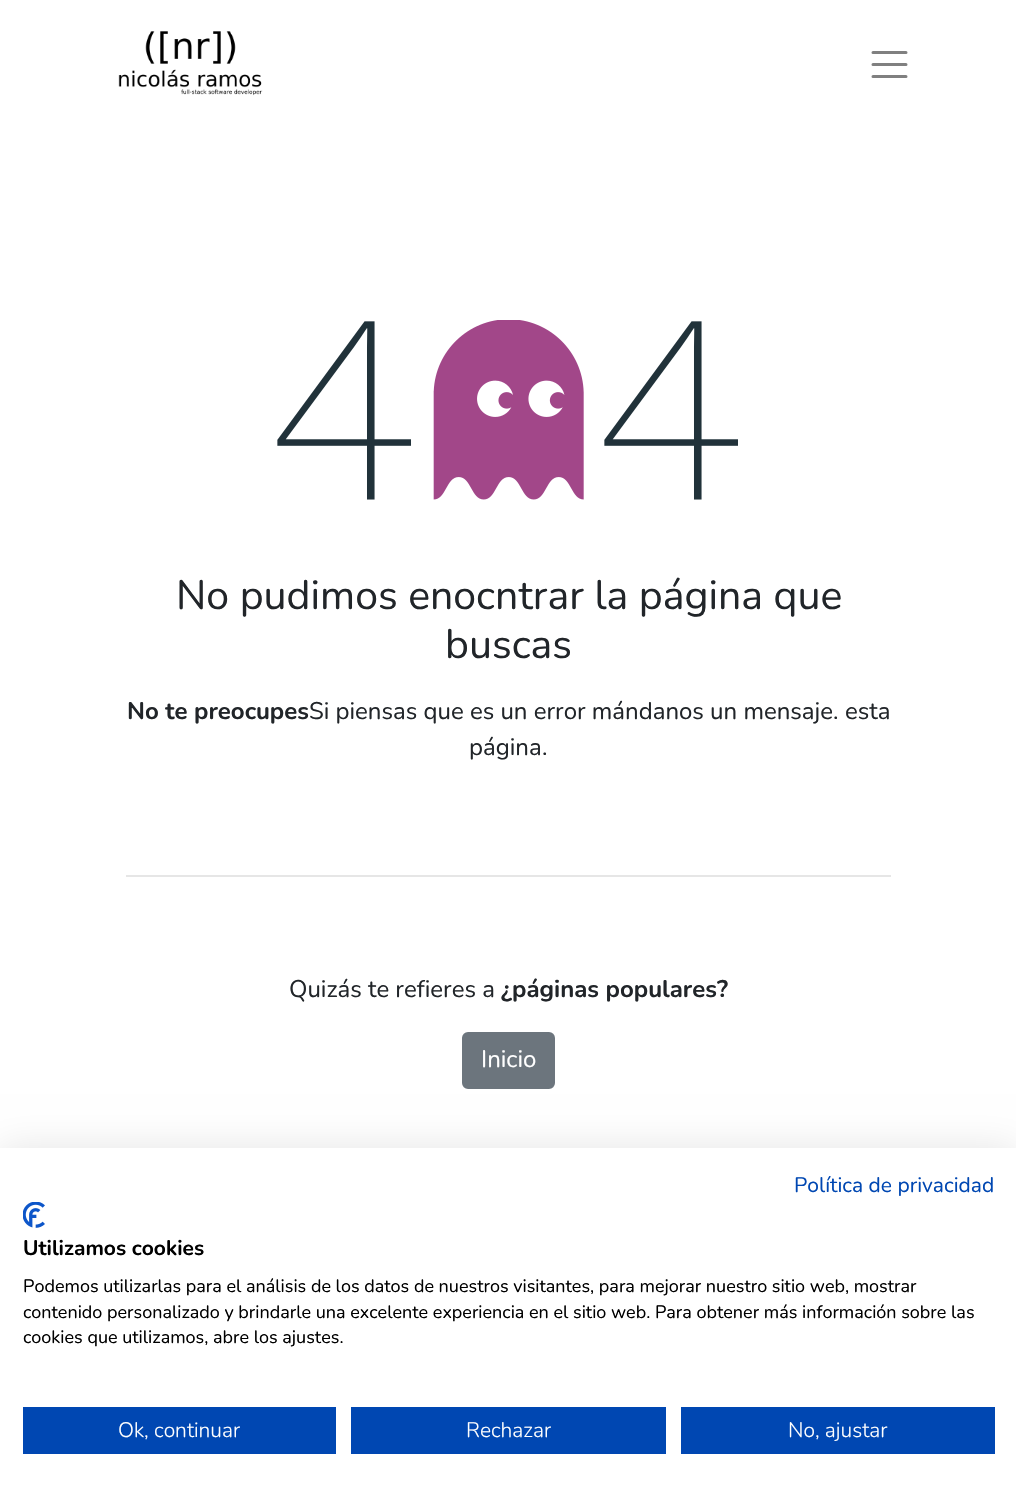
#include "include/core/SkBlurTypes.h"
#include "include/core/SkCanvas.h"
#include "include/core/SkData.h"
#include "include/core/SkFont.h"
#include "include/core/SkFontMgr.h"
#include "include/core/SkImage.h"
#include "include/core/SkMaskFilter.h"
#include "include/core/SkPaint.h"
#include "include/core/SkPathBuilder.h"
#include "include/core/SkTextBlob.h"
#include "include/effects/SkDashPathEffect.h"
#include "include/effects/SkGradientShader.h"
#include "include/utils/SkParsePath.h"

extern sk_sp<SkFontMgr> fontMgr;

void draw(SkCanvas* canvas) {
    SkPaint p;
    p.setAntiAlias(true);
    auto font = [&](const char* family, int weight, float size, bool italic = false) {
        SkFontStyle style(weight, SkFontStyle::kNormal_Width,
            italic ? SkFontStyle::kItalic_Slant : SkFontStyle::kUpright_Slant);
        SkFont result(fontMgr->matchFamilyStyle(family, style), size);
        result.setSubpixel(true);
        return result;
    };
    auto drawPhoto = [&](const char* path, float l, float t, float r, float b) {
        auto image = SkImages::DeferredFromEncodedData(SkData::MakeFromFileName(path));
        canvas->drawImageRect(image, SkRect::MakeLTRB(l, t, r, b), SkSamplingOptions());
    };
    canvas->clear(0xFFFFFFFF);
    drawPhoto("media/1.png", 118, 31, 263, 96);
    p.setStyle(SkPaint::kStroke_Style);
    p.setStrokeWidth(3);
    p.setStrokeCap(SkPaint::kRound_Cap);
    p.setColor(0xFF808080);
    canvas->drawPath(SkPathBuilder().moveTo(873, 52.5f).lineTo(906, 52.5f).moveTo(873, 64.5f).lineTo(906, 64.5f).moveTo(873, 76.5f).lineTo(906, 76.5f).detach(), p);
    drawPhoto("media/2.png", 277, 320, 738, 500);
    auto font1 = font("Nunito", 400, 41);
    p.setStyle(SkPaint::kFill_Style);
    p.setColor(0xFF212529);
    canvas->drawString("No pudimos enocntrar la página que", 176, 609, font1, p);
    canvas->drawString("buscas", 445, 658, font1, p);
    auto font2 = font("Nunito", 700, 24);
    canvas->drawString("No te preocupes", 127, 719, font2, p);
    auto font3 = font("Nunito", 400, 24);
    {
        const struct { const char* s; float x, y; } items[] = {
            {"Si piensas que es un error mándanos un mensaje.", 309, 719},
            {"esta", 845, 719},
            {"página", 469, 755},
            {".", 542, 755},
        };
        for (auto [s, x, y] : items) {
            canvas->drawString(s, x, y, font3, p);
        }
    }
    p.setColor(0xFFE6E6E6);
    canvas->drawRect(SkRect::MakeLTRB(126, 875, 891, 877), p);
    p.setColor(0xFF212529);
    canvas->drawString("Quizás te refieres a", 289, 997, font3, p);
    canvas->drawString("¿páginas populares?", 501, 997, font2, p);
    p.setColor(0xFF6C757D);
    canvas->drawRoundRect(SkRect::MakeLTRB(463, 1033, 554, 1088), 5, 5, p);
    p.setStyle(SkPaint::kStroke_Style);
    p.setStrokeWidth(2);
    p.setStrokeCap(SkPaint::kButt_Cap);
    canvas->drawRoundRect(SkRect::MakeLTRB(463, 1033, 554, 1088), 5, 5, p);
    p.setStyle(SkPaint::kFill_Style);
    p.setColor(0xFFFFFFFF);
    canvas->drawString("Inicio", 481, 1067, font3, p);
    p.setColor(0x1A000000);
    p.setMaskFilter(SkMaskFilter::MakeBlur(kNormal_SkBlurStyle, 18));
    canvas->drawRect(SkRect::MakeLTRB(0, 1148, 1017, 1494), p);
    p.setMaskFilter(nullptr);
    p.setColor(0xFFFFFFFF);
    canvas->drawRect(SkRect::MakeLTRB(0, 1148, 1016, 1493), p);
    auto font4 = font("Nunito", 400, 21);
    p.setColor(0xFF0047B2);
    canvas->drawString("Política de privacidad", 794, 1192, font4, p);
    drawPhoto("media/3.png", 23, 1202, 45, 1228);
    auto font5 = font("Nunito", 700, 21);
    p.setColor(0xFF000000);
    canvas->drawString("Utilizamos cookies", 23, 1255, font5, p);
    auto font6 = font("Nunito", 400, 18);
    {
        const struct { const char* s; float x, y; } items[] = {
            {"Podemos utilizarlas para el análisis de los datos de nuestros visitantes, para mejorar nuestro sitio web, mostrar", 23, 1292},
            {"contenido personalizado y brindarle una excelente experiencia en el sitio web. Para obtener más información sobre las", 23, 1318},
            {"cookies que utilizamos, abre los ajustes.", 23, 1343},
        };
        for (auto [s, x, y] : items) {
            canvas->drawString(s, x, y, font6, p);
        }
    }
    p.setColor(0xFF0047B2);
    canvas->drawRect(SkRect::MakeLTRB(23, 1407, 336, 1454), p);
    auto font7 = font("Nunito", 300, 21);
    p.setColor(0xFFFFFFFF);
    canvas->drawString("Ok, continuar", 118, 1437, font7, p);
    p.setColor(0xFF0047B2);
    canvas->drawRect(SkRect::MakeLTRB(351, 1407, 666, 1454), p);
    p.setColor(0xFFFFFFFF);
    canvas->drawString("Rechazar", 466, 1437, font7, p);
    p.setColor(0xFF0047B2);
    canvas->drawRect(SkRect::MakeLTRB(681, 1407, 995, 1454), p);
    p.setColor(0xFFFFFFFF);
    canvas->drawString("No, ajustar", 788, 1437, font7, p);
}
